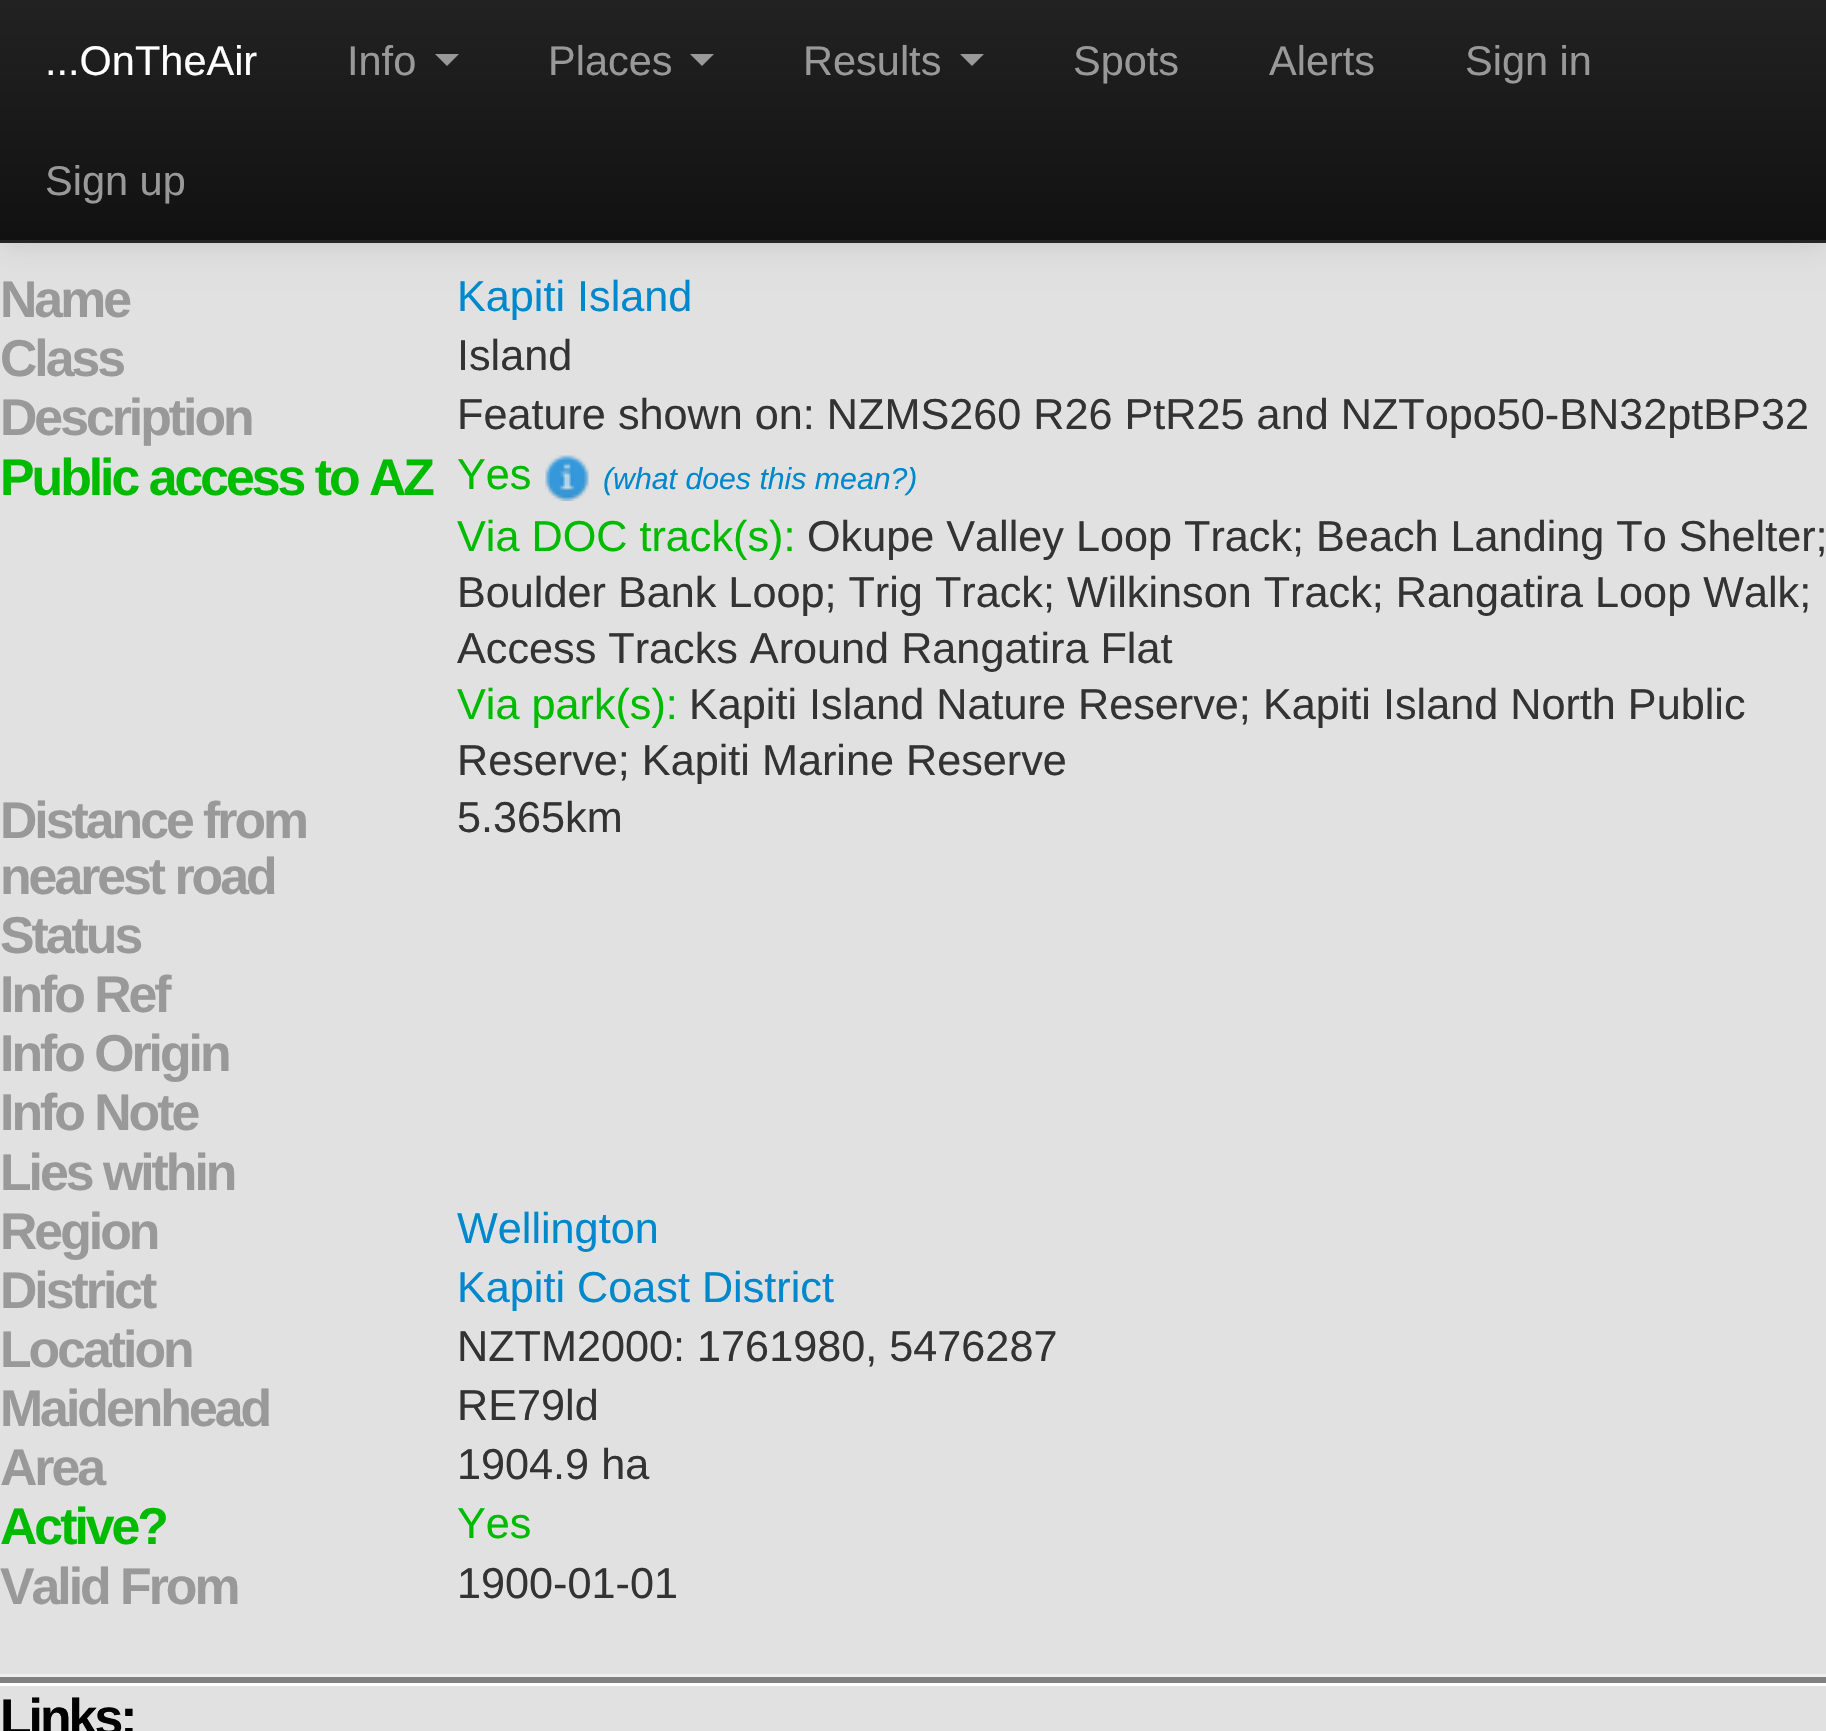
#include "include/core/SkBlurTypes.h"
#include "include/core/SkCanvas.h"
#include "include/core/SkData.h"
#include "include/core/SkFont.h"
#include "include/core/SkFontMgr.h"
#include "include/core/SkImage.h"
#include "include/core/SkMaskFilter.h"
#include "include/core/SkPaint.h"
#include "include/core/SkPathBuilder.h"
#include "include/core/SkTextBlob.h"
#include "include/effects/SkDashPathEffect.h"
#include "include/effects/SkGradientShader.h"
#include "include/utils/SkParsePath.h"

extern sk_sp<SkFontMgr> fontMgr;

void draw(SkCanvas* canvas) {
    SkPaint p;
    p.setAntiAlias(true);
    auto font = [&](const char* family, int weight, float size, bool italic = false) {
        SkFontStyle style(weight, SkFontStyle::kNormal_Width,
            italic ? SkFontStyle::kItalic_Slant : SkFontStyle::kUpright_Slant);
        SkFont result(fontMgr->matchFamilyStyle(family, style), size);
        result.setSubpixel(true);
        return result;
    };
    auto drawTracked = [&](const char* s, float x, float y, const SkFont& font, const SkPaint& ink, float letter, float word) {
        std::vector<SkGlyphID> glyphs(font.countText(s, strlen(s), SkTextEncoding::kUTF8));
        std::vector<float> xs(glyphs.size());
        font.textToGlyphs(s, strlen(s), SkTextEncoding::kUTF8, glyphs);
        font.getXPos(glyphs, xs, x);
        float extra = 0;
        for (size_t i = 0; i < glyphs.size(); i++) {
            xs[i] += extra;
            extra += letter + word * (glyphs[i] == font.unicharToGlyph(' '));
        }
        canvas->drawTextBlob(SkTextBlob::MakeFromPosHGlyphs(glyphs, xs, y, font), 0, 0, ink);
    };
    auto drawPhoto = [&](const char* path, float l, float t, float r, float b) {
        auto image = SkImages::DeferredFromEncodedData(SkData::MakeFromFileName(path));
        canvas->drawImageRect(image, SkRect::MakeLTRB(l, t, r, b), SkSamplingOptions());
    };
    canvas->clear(0xFFE1E1E1);
    p.setColor(0x1A000000);
    p.setMaskFilter(SkMaskFilter::MakeBlur(kNormal_SkBlurStyle, 15));
    canvas->drawRect(SkRect::MakeLTRB(0, 3, 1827, 246), p);
    p.setMaskFilter(nullptr);
    {
        const SkColor colors[] = {0xFF222222, 0xFF111111};
        const float stops[] = {0, 1};
        const SkPoint ends[] = {{914, 0}, {914, 240}};
        p.setShader(SkGradientShader::MakeLinear(ends, colors, stops, 2, SkTileMode::kClamp));
        p.setAlpha(255);
    }
    canvas->drawRect(SkRect::MakeLTRB(0, 0, 1826, 240), p);
    p.setShader(nullptr);
    p.setColor(0xFF252525);
    canvas->drawRect(SkRect::MakeLTRB(0, 240, 1826, 243), p);
    auto font1 = font("Liberation Sans", 400, 41.5f);
    p.setColor(0xFFFFFFFF);
    canvas->drawString("...OnTheAir", 45, 75, font1, p);
    p.setColor(0xFF999999);
    canvas->drawString("Info", 347, 75, font1, p);
    canvas->drawPath(SkPathBuilder().moveTo(435, 54).lineTo(459, 54).lineTo(447, 66).close().detach(), p);
    canvas->drawString("Places", 548, 75, font1, p);
    canvas->drawPath(SkPathBuilder().moveTo(690, 54).lineTo(714, 54).lineTo(702, 66).close().detach(), p);
    canvas->drawString("Results", 803, 75, font1, p);
    canvas->drawPath(SkPathBuilder().moveTo(960, 54).lineTo(984, 54).lineTo(972, 66).close().detach(), p);
    {
        const struct { const char* s; float x, y; } items[] = {
            {"Spots", 1073, 75},
            {"Alerts", 1269, 75},
            {"Sign in", 1465, 75},
            {"Sign up", 45, 195},
        };
        for (auto [s, x, y] : items) {
            canvas->drawString(s, x, y, font1, p);
        }
    }
    auto font2 = font("Liberation Sans", 700, 51.75f);
    drawTracked("Name", 0, 317, font2, p, -3, 0);
    auto font3 = font("Liberation Sans", 400, 43.2f);
    p.setColor(0xFF0088CC);
    canvas->drawString("Kapiti Island", 457, 311, font3, p);
    p.setColor(0xFF999999);
    drawTracked("Class", 0, 376, font2, p, -3, 0);
    p.setColor(0xFF333333);
    canvas->drawString("Island", 457, 370, font3, p);
    p.setColor(0xFF999999);
    drawTracked("Description", 0, 435, font2, p, -3, 0);
    p.setColor(0xFF333333);
    canvas->drawString("Feature shown on: NZMS260 R26 PtR25 and NZTopo50-BN32ptBP32", 457, 429, font3, p);
    p.setColor(0xFF00BB00);
    drawTracked("Public access to AZ", 0, 495, font2, p, -3, 0);
    canvas->drawString("Yes", 457, 489, font3, p);
    drawPhoto("media/1.png", 545, 455, 589, 501);
    auto font4 = font("Liberation Sans", 400, 30.25f, true);
    p.setColor(0xFF0088CC);
    canvas->drawString("(what does this mean?)", 603, 489, font4, p);
    p.setColor(0xFF00BB00);
    canvas->drawString("Via DOC track(s):", 457, 551, font3, p);
    p.setColor(0xFF333333);
    {
        const struct { const char* s; float x, y; } items[] = {
            {"Okupe Valley Loop Track; Beach Landing To Shelter;", 807, 551},
            {"Boulder Bank Loop; Trig Track; Wilkinson Track; Rangatira Loop Walk;", 457, 607},
            {"Access Tracks Around Rangatira Flat", 457, 663},
        };
        for (auto [s, x, y] : items) {
            canvas->drawString(s, x, y, font3, p);
        }
    }
    p.setColor(0xFF00BB00);
    canvas->drawString("Via park(s):", 457, 719, font3, p);
    p.setColor(0xFF333333);
    canvas->drawString("Kapiti Island Nature Reserve; Kapiti Island North Public", 689, 719, font3, p);
    canvas->drawString("Reserve; Kapiti Marine Reserve", 457, 775, font3, p);
    p.setColor(0xFF999999);
    drawTracked("Distance from", 0, 838, font2, p, -3, 0);
    drawTracked("nearest road", 0, 894, font2, p, -3, 0);
    p.setColor(0xFF333333);
    canvas->drawString("5.365km", 457, 832, font3, p);
    p.setColor(0xFF999999);
    {
        const struct { const char* s; float x, y; } items[] = {
            {"Status", 0, 953},
            {"Info Ref", 0, 1012},
            {"Info Origin", 0, 1071},
            {"Info Note", 0, 1130},
            {"Lies within", 0, 1190},
            {"Region", 0, 1249},
        };
        for (auto [s, x, y] : items) {
            drawTracked(s, x, y, font2, p, -3, 0);
        }
    }
    p.setColor(0xFF0088CC);
    canvas->drawString("Wellington", 457, 1243, font3, p);
    p.setColor(0xFF999999);
    drawTracked("District", 0, 1308, font2, p, -3, 0);
    p.setColor(0xFF0088CC);
    canvas->drawString("Kapiti Coast District", 457, 1302, font3, p);
    p.setColor(0xFF999999);
    drawTracked("Location", 0, 1367, font2, p, -3, 0);
    p.setColor(0xFF333333);
    canvas->drawString("NZTM2000: 1761980, 5476287", 457, 1361, font3, p);
    p.setColor(0xFF999999);
    drawTracked("Maidenhead", 0, 1426, font2, p, -3, 0);
    p.setColor(0xFF333333);
    canvas->drawString("RE79ld", 457, 1420, font3, p);
    p.setColor(0xFF999999);
    drawTracked("Area", 0, 1485, font2, p, -3, 0);
    p.setColor(0xFF333333);
    canvas->drawString("1904.9 ha", 457, 1479, font3, p);
    p.setColor(0xFF00BB00);
    drawTracked("Active?", 0, 1544, font2, p, -3, 0);
    canvas->drawString("Yes", 457, 1538, font3, p);
    p.setColor(0xFF999999);
    drawTracked("Valid From", 0, 1604, font2, p, -3, 0);
    p.setColor(0xFF333333);
    canvas->drawString("1900-01-01", 457, 1598, font3, p);
    {
        const struct { float l, t, r, b; SkColor color; } items[] = {
            {0, 1677, 1826, 1683, 0xFF808080},
            {0, 1674, 1826, 1677, 0xFFEEEEEE},
            {0, 1683, 1826, 1686, 0xFFFFFFFF},
        };
        for (auto [l, t, r, b, color] : items) {
            p.setColor(color);
            canvas->drawRect(SkRect::MakeLTRB(l, t, r, b), p);
        }
    }
    p.setColor(0xFF000000);
    drawTracked("Links:", 0, 1735, font2, p, -3, 0);
}
